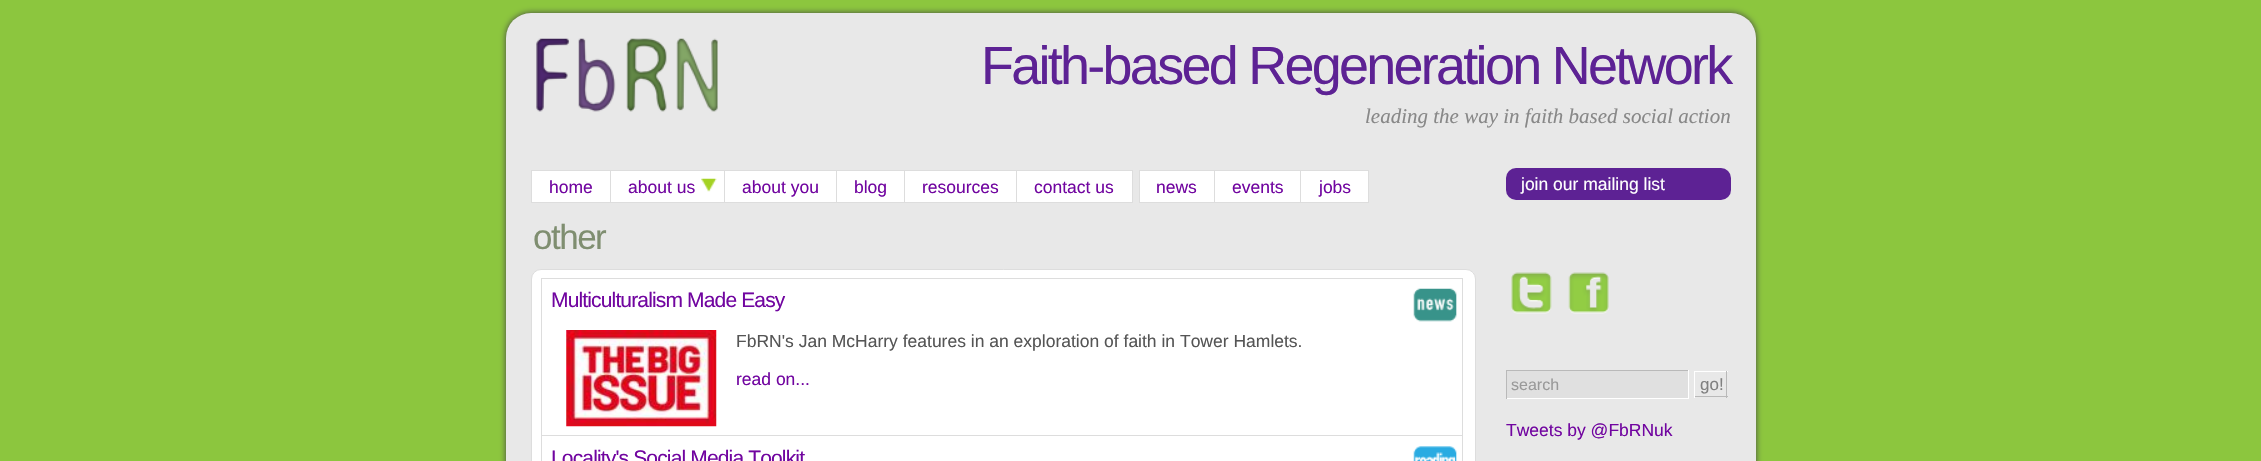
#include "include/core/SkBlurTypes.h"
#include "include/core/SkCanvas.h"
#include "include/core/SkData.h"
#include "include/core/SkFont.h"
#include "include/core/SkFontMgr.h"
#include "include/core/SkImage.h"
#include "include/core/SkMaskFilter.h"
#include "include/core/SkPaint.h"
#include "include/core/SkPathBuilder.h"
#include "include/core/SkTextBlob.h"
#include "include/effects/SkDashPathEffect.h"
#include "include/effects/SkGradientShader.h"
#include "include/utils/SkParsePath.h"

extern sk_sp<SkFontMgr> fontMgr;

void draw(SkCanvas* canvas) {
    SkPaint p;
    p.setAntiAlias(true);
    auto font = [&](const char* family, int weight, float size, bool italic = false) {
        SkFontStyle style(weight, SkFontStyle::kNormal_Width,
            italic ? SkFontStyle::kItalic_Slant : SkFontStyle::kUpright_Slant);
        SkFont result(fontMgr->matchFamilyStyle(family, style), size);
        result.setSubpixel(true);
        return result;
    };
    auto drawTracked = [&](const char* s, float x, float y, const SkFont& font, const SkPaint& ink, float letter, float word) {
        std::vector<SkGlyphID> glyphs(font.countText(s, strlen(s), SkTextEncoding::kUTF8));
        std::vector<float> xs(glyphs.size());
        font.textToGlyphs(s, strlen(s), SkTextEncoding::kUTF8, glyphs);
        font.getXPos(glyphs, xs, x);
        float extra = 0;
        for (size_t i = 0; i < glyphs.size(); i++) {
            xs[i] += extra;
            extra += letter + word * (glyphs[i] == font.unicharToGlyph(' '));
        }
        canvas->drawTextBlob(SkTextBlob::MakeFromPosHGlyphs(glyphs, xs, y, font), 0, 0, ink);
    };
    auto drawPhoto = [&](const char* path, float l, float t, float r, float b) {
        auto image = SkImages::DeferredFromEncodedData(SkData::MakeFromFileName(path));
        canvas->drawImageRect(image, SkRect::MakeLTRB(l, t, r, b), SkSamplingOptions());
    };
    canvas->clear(0xFF8CC63E);
    p.setColor(0xFF444444);
    p.setMaskFilter(SkMaskFilter::MakeBlur(kNormal_SkBlurStyle, 3));
    canvas->drawRoundRect(SkRect::MakeLTRB(506, 13, 1756, 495), 25, 25, p);
    p.setMaskFilter(nullptr);
    p.setColor(0xFFE8E8E8);
    canvas->drawRoundRect(SkRect::MakeLTRB(506, 13, 1756, 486), 25, 25, p);
    drawPhoto("media/1.png", 536, 38, 718, 112);
    auto font1 = font("Liberation Sans", 400, 53.9f);
    p.setColor(0xFF5D2294);
    drawTracked("Faith-based Regeneration Network", 981, 84, font1, p, -2.7f, 0);
    auto font2 = font("Liberation Serif", 400, 21, true);
    p.setColor(0xFF888888);
    canvas->drawString("leading the way in faith based social action", 1365, 123, font2, p);
    p.setColor(0xFFFFFFFF);
    canvas->drawRect(SkRect::MakeLTRB(531.5f, 170.5f, 610.5f, 202.5f), p);
    p.setStyle(SkPaint::kStroke_Style);
    p.setStrokeWidth(1);
    p.setColor(0xFFDDDDDD);
    canvas->drawRect(SkRect::MakeLTRB(531.5f, 170.5f, 610.5f, 202.5f), p);
    auto font3 = font("Liberation Sans", 400, 17.5f);
    p.setStyle(SkPaint::kFill_Style);
    p.setColor(0xFF7105A0);
    canvas->drawString("home", 549, 193, font3, p);
    p.setColor(0xFFFFFFFF);
    canvas->drawRect(SkRect::MakeLTRB(611, 171, 724, 202), p);
    drawPhoto("media/2.png", 701, 178, 717, 192);
    p.setStyle(SkPaint::kStroke_Style);
    p.setColor(0xFFDDDDDD);
    canvas->drawRect(SkRect::MakeLTRB(610.5f, 170.5f, 724.5f, 202.5f), p);
    p.setStyle(SkPaint::kFill_Style);
    p.setColor(0xFF7105A0);
    canvas->drawString("about us", 628, 193, font3, p);
    p.setColor(0xFFFFFFFF);
    canvas->drawRect(SkRect::MakeLTRB(725, 171, 836, 202), p);
    p.setStyle(SkPaint::kStroke_Style);
    p.setColor(0xFFDDDDDD);
    canvas->drawRect(SkRect::MakeLTRB(724.5f, 170.5f, 837.5f, 202.5f), p);
    p.setStyle(SkPaint::kFill_Style);
    p.setColor(0xFF7105A0);
    canvas->drawString("about you", 742, 193, font3, p);
    p.setColor(0xFFFFFFFF);
    canvas->drawRect(SkRect::MakeLTRB(836.5f, 170.5f, 904.5f, 202.5f), p);
    p.setStyle(SkPaint::kStroke_Style);
    p.setColor(0xFFDDDDDD);
    canvas->drawRect(SkRect::MakeLTRB(836.5f, 170.5f, 904.5f, 202.5f), p);
    p.setStyle(SkPaint::kFill_Style);
    p.setColor(0xFF7105A0);
    canvas->drawString("blog", 854, 193, font3, p);
    p.setColor(0xFFFFFFFF);
    canvas->drawRect(SkRect::MakeLTRB(905, 171, 1016, 202), p);
    p.setStyle(SkPaint::kStroke_Style);
    p.setColor(0xFFDDDDDD);
    canvas->drawRect(SkRect::MakeLTRB(904.5f, 170.5f, 1017.5f, 202.5f), p);
    p.setStyle(SkPaint::kFill_Style);
    p.setColor(0xFF7105A0);
    canvas->drawString("resources", 922, 193, font3, p);
    p.setColor(0xFFFFFFFF);
    canvas->drawRect(SkRect::MakeLTRB(1016.5f, 170.5f, 1132.5f, 202.5f), p);
    p.setStyle(SkPaint::kStroke_Style);
    p.setColor(0xFFDDDDDD);
    canvas->drawRect(SkRect::MakeLTRB(1016.5f, 170.5f, 1132.5f, 202.5f), p);
    p.setStyle(SkPaint::kFill_Style);
    p.setColor(0xFF7105A0);
    canvas->drawString("contact us", 1034, 193, font3, p);
    p.setColor(0xFFFFFFFF);
    canvas->drawRect(SkRect::MakeLTRB(1139.5f, 170.5f, 1214.5f, 202.5f), p);
    p.setStyle(SkPaint::kStroke_Style);
    p.setColor(0xFFDDDDDD);
    canvas->drawRect(SkRect::MakeLTRB(1139.5f, 170.5f, 1214.5f, 202.5f), p);
    p.setStyle(SkPaint::kFill_Style);
    p.setColor(0xFF7105A0);
    canvas->drawString("news", 1156, 193, font3, p);
    p.setColor(0xFFFFFFFF);
    canvas->drawRect(SkRect::MakeLTRB(1214.5f, 170.5f, 1300.5f, 202.5f), p);
    p.setStyle(SkPaint::kStroke_Style);
    p.setColor(0xFFDDDDDD);
    canvas->drawRect(SkRect::MakeLTRB(1214.5f, 170.5f, 1300.5f, 202.5f), p);
    p.setStyle(SkPaint::kFill_Style);
    p.setColor(0xFF7105A0);
    canvas->drawString("events", 1232, 193, font3, p);
    p.setColor(0xFFFFFFFF);
    canvas->drawRect(SkRect::MakeLTRB(1300.5f, 170.5f, 1368.5f, 202.5f), p);
    p.setStyle(SkPaint::kStroke_Style);
    p.setColor(0xFFDDDDDD);
    canvas->drawRect(SkRect::MakeLTRB(1300.5f, 170.5f, 1368.5f, 202.5f), p);
    p.setStyle(SkPaint::kFill_Style);
    p.setColor(0xFF7105A0);
    canvas->drawString("jobs", 1319, 193, font3, p);
    p.setColor(0xFF5D2294);
    canvas->drawRoundRect(SkRect::MakeLTRB(1506, 168, 1731, 200), 10, 10, p);
    p.setColor(0xFFFFFFFF);
    canvas->drawString("join our mailing list", 1521, 190, font3, p);
    drawPhoto("media/3.png", 1511, 272, 1552, 314);
    drawPhoto("media/4.png", 1568, 272, 1609, 314);
    {
        const struct { float l, t, r, b; SkColor color; } items[] = {
            {1507, 371, 1688, 398, 0xFFE0E0E0},
            {1506, 370, 1689, 371, 0xFFB9B9B9},
            {1688, 370, 1689, 399, 0xFFFFFFFF},
            {1506, 398, 1689, 399, 0xFFFFFFFF},
            {1506, 370, 1507, 399, 0xFFB9B9B9},
        };
        for (auto [l, t, r, b, color] : items) {
            p.setColor(color);
            canvas->drawRect(SkRect::MakeLTRB(l, t, r, b), p);
        }
    }
    auto font4 = font("Liberation Sans", 400, 16);
    p.setColor(0xFF999999);
    canvas->drawString("search", 1511, 390, font4, p);
    {
        const struct { float l, t, r, b; SkColor color; } items[] = {
            {1694, 371, 1728, 372, 0xFFFFFFFF},
            {1726, 371, 1727, 398, 0xFFB9B9B9},
            {1694, 396, 1728, 397, 0xFFB9B9B9},
            {1694, 371, 1695, 398, 0xFFFFFFFF},
        };
        for (auto [l, t, r, b, color] : items) {
            p.setColor(color);
            canvas->drawRect(SkRect::MakeLTRB(l, t, r, b), p);
        }
    }
    auto font5 = font("Liberation Sans", 400, 17);
    p.setColor(0xFF808080);
    canvas->drawString("go!", 1700, 390, font5, p);
    p.setColor(0xFF7105A0);
    canvas->drawString("Tweets by @FbRNuk", 1506, 436, font3, p);
    auto font6 = font("Liberation Sans", 400, 35);
    p.setColor(0xFF7F8E70);
    drawTracked("other", 533, 249, font6, p, -1.5f, 0);
    p.setColor(0xFFFFFFFF);
    canvas->drawRoundRect(SkRect::MakeLTRB(531.5f, 269.5f, 1475.5f, 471.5f), 9.5f, 9.5f, p);
    p.setStyle(SkPaint::kStroke_Style);
    p.setColor(0xFFDDDDDD);
    canvas->drawRoundRect(SkRect::MakeLTRB(531.5f, 269.5f, 1475.5f, 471.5f), 9.5f, 9.5f, p);
    drawPhoto("media/5.png", 1413, 288, 1457, 322);
    canvas->drawRect(SkRect::MakeLTRB(541.5f, 278.5f, 1462.5f, 435.5f), p);
    auto font7 = font("Liberation Sans", 400, 21);
    p.setStyle(SkPaint::kFill_Style);
    p.setColor(0xFF7105A0);
    drawTracked("Multiculturalism Made Easy", 551, 307, font7, p, -0.85f, 0);
    drawPhoto("media/6.png", 566, 330, 717, 427);
    p.setColor(0xFF555555);
    canvas->drawString("FbRN's Jan McHarry features in an exploration of faith in Tower Hamlets.", 736, 347, font3, p);
    p.setColor(0xFF7105A0);
    canvas->drawString("read on...", 736, 385, font3, p);
    drawPhoto("media/7.png", 1413, 446, 1457, 461);
    p.setStyle(SkPaint::kStroke_Style);
    p.setColor(0xFFDDDDDD);
    canvas->drawRect(SkRect::MakeLTRB(541.5f, 435.5f, 1462.5f, 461.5f), p);
    p.setStyle(SkPaint::kFill_Style);
    p.setColor(0xFF7105A0);
    drawTracked("Locality's Social Media Toolkit", 551, 465, font7, p, -0.85f, 0);
}
